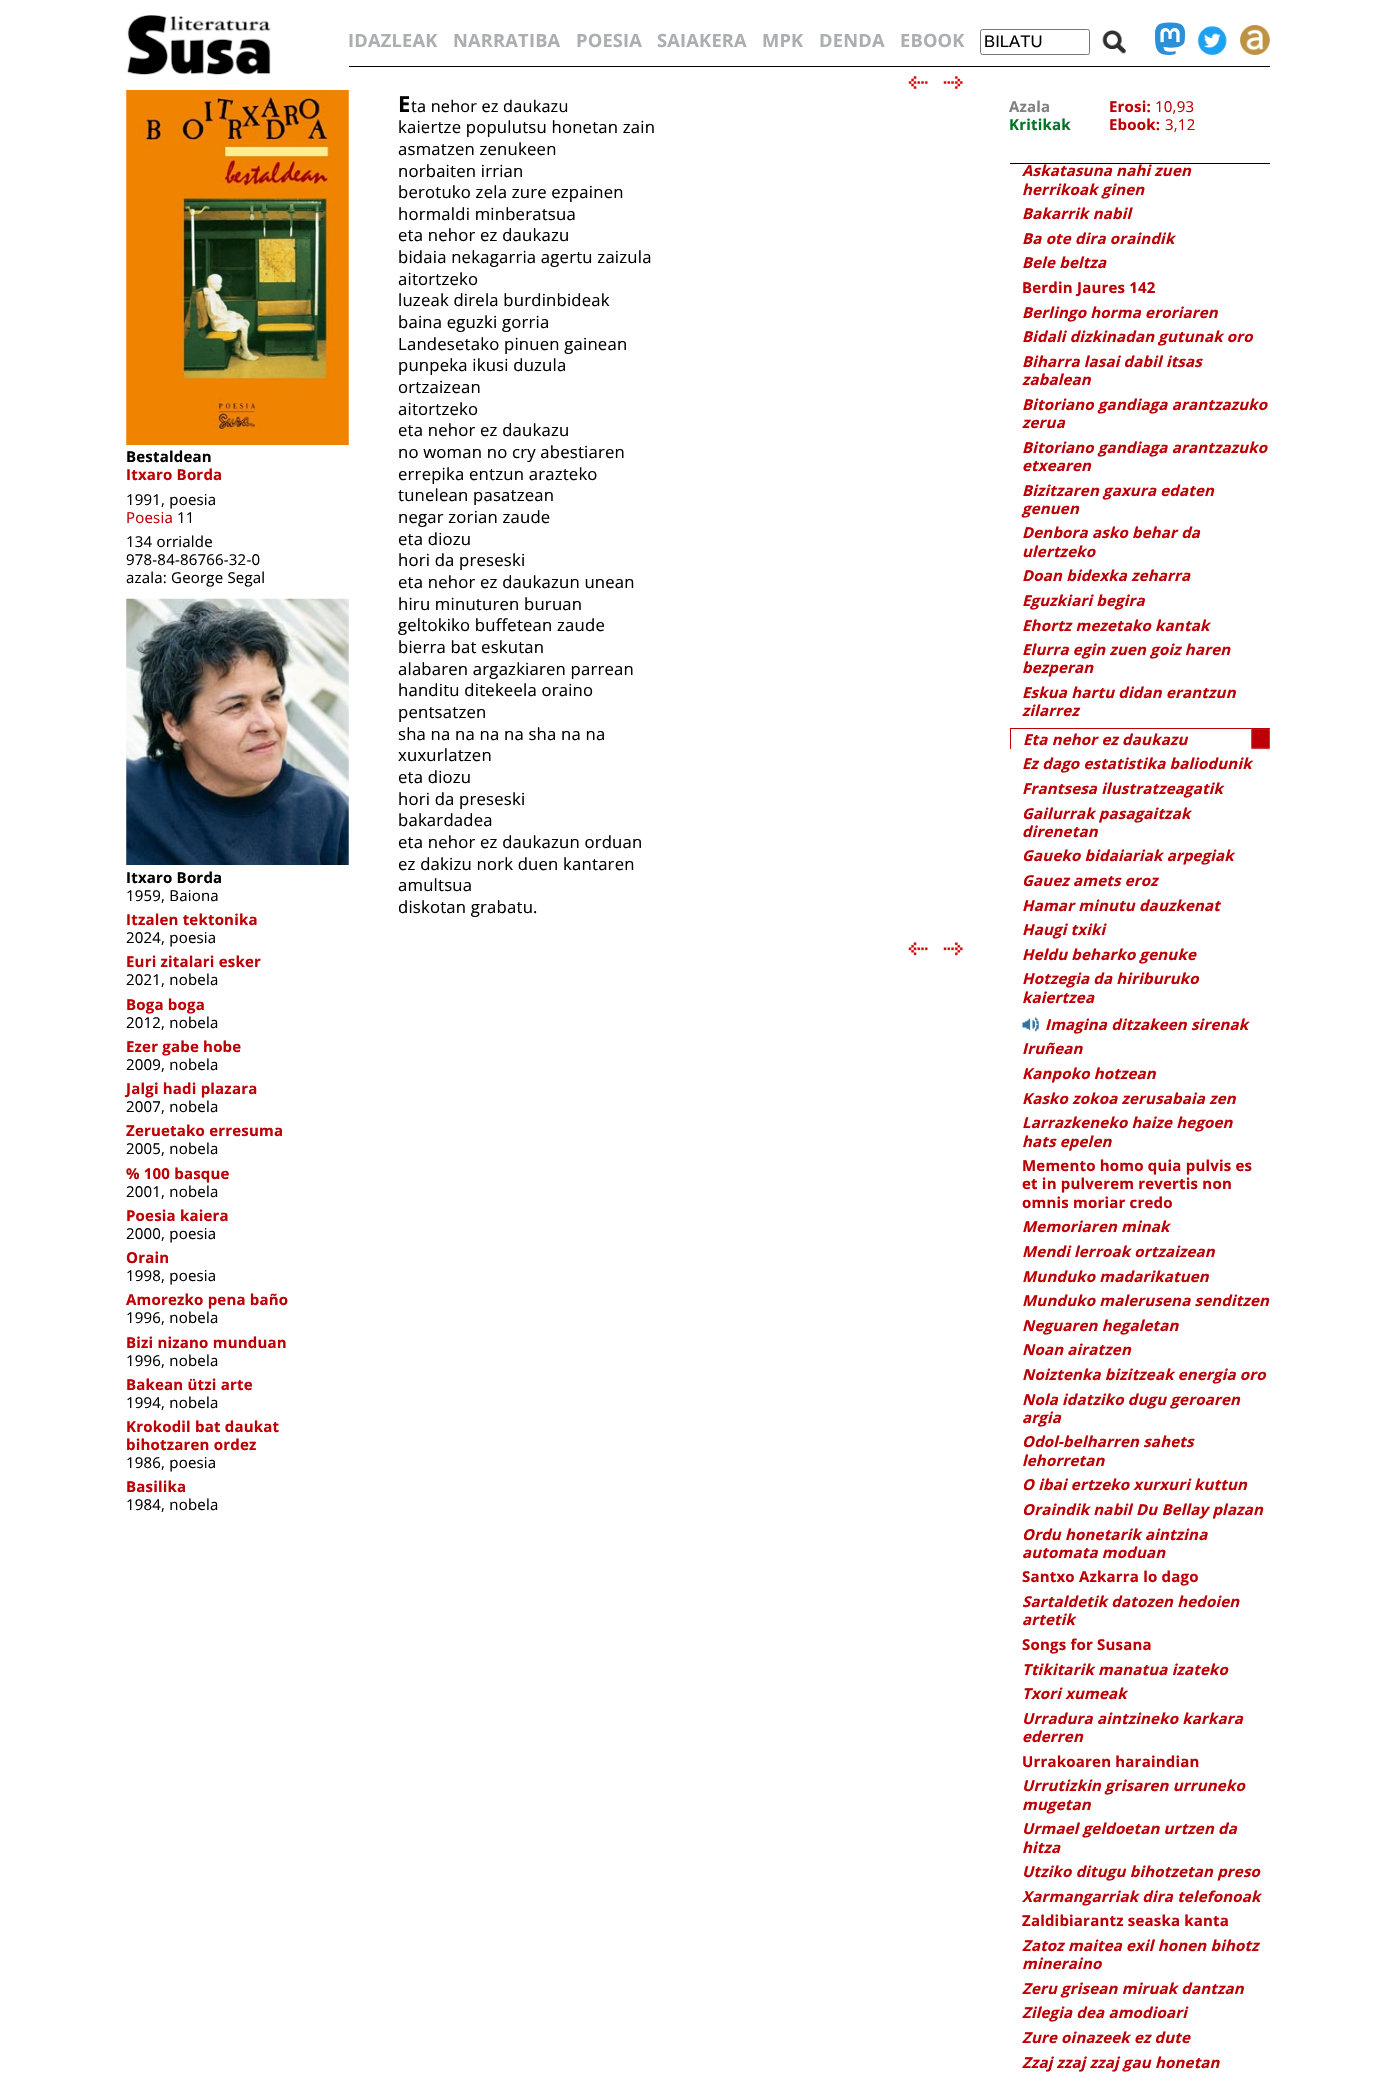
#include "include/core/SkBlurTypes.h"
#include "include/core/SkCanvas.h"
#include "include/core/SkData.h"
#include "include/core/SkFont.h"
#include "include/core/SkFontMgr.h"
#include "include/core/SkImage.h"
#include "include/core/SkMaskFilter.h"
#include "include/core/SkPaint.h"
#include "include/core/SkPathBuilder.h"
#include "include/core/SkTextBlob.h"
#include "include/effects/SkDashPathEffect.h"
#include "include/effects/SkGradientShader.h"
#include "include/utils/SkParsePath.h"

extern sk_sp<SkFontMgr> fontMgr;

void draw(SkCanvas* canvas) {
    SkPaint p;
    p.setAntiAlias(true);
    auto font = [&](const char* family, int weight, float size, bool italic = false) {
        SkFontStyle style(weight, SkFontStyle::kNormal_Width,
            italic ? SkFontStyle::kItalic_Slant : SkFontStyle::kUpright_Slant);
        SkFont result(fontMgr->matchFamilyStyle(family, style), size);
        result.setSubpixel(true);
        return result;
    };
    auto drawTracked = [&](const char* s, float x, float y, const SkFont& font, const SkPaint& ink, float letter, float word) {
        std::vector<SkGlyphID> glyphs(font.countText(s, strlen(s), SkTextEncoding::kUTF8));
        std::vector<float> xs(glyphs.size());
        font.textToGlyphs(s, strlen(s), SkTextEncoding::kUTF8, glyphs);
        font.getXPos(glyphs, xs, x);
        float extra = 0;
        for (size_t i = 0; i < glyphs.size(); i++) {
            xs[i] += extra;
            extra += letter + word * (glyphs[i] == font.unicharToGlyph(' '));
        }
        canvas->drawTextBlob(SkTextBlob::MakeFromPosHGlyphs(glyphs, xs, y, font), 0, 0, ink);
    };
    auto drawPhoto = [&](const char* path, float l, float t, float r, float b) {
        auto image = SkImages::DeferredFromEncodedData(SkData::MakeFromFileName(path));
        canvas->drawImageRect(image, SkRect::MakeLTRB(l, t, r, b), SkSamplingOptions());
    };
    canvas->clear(0xFFFFFFFF);
    drawPhoto("media/1.png", 127, 15, 271, 75);
    drawPhoto("media/2.png", 126, 90, 349, 445);
    auto font1 = font("Open Sans", 700, 15);
    p.setColor(0xFF000000);
    drawTracked("Bestaldean", 126, 462, font1, p, 0.2f, 0);
    p.setColor(0xFFBC0004);
    drawTracked("Itxaro Borda", 126, 480, font1, p, 0.2f, 0);
    auto font2 = font("Open Sans", 400, 15);
    p.setColor(0xFF000000);
    drawTracked("1991, poesia", 126, 505, font2, p, 0.2f, 0);
    p.setColor(0xFFBC0004);
    drawTracked("Poesia", 126, 523, font2, p, 0.2f, 0);
    p.setColor(0xFF000000);
    {
        const struct { const char* s; float x, y; } items[] = {
            {"11", 177, 523},
            {"134 orrialde", 126, 547},
            {"978-84-86766-32-0", 126, 565},
            {"azala: George Segal", 126, 583},
        };
        for (auto [s, x, y] : items) {
            drawTracked(s, x, y, font2, p, 0.2f, 0);
        }
    }
    drawPhoto("media/3.png", 126, 598, 349, 865);
    drawTracked("Itxaro Borda", 126, 883, font1, p, 0.2f, 0);
    drawTracked("1959, Baiona", 126, 901, font2, p, 0.2f, 0);
    p.setColor(0xFFBC0004);
    drawTracked("Itzalen tektonika", 126, 925, font1, p, 0.2f, 0);
    p.setColor(0xFF000000);
    drawTracked("2024, poesia", 126, 943, font2, p, 0.2f, 0);
    p.setColor(0xFFBC0004);
    drawTracked("Euri zitalari esker", 126, 967, font1, p, 0.2f, 0);
    p.setColor(0xFF000000);
    drawTracked("2021, nobela", 126, 985, font2, p, 0.2f, 0);
    p.setColor(0xFFBC0004);
    drawTracked("Boga boga", 126, 1010, font1, p, 0.2f, 0);
    p.setColor(0xFF000000);
    drawTracked("2012, nobela", 126, 1028, font2, p, 0.2f, 0);
    p.setColor(0xFFBC0004);
    drawTracked("Ezer gabe hobe", 126, 1052, font1, p, 0.2f, 0);
    p.setColor(0xFF000000);
    drawTracked("2009, nobela", 126, 1070, font2, p, 0.2f, 0);
    p.setColor(0xFFBC0004);
    drawTracked("Jalgi hadi plazara", 126, 1094, font1, p, 0.2f, 0);
    p.setColor(0xFF000000);
    drawTracked("2007, nobela", 126, 1112, font2, p, 0.2f, 0);
    p.setColor(0xFFBC0004);
    drawTracked("Zeruetako erresuma", 126, 1136, font1, p, 0.2f, 0);
    p.setColor(0xFF000000);
    drawTracked("2005, nobela", 126, 1154, font2, p, 0.2f, 0);
    p.setColor(0xFFBC0004);
    drawTracked("% 100 basque", 126, 1179, font1, p, 0.2f, 0);
    p.setColor(0xFF000000);
    drawTracked("2001, nobela", 126, 1197, font2, p, 0.2f, 0);
    p.setColor(0xFFBC0004);
    drawTracked("Poesia kaiera", 126, 1221, font1, p, 0.2f, 0);
    p.setColor(0xFF000000);
    drawTracked("2000, poesia", 126, 1239, font2, p, 0.2f, 0);
    p.setColor(0xFFBC0004);
    drawTracked("Orain", 126, 1263, font1, p, 0.2f, 0);
    p.setColor(0xFF000000);
    drawTracked("1998, poesia", 126, 1281, font2, p, 0.2f, 0);
    p.setColor(0xFFBC0004);
    drawTracked("Amorezko pena baño", 126, 1305, font1, p, 0.2f, 0);
    p.setColor(0xFF000000);
    drawTracked("1996, nobela", 126, 1323, font2, p, 0.2f, 0);
    p.setColor(0xFFBC0004);
    drawTracked("Bizi nizano munduan", 126, 1348, font1, p, 0.2f, 0);
    p.setColor(0xFF000000);
    drawTracked("1996, nobela", 126, 1366, font2, p, 0.2f, 0);
    p.setColor(0xFFBC0004);
    drawTracked("Bakean ützi arte", 126, 1390, font1, p, 0.2f, 0);
    p.setColor(0xFF000000);
    drawTracked("1994, nobela", 126, 1408, font2, p, 0.2f, 0);
    p.setColor(0xFFBC0004);
    drawTracked("Krokodil bat daukat", 126, 1432, font1, p, 0.2f, 0);
    drawTracked("bihotzaren ordez", 126, 1450, font1, p, 0.2f, 0);
    p.setColor(0xFF000000);
    drawTracked("1986, poesia", 126, 1468, font2, p, 0.2f, 0);
    p.setColor(0xFFBC0004);
    drawTracked("Basilika", 126, 1492, font1, p, 0.2f, 0);
    p.setColor(0xFF000000);
    drawTracked("1984, nobela", 126, 1510, font2, p, 0.2f, 0);
    canvas->drawRect(SkRect::MakeLTRB(349, 66, 1270, 67), p);
    auto font3 = font("Open Sans", 700, 18.25f);
    p.setColor(0xFFADAEB2);
    {
        const struct { const char* s; float x, y; } items[] = {
            {"IDAZLEAK", 348, 47},
            {"NARRATIBA", 453, 47},
            {"POESIA", 576, 47},
            {"SAIAKERA", 657, 47},
            {"MPK", 762, 47},
            {"DENDA", 819, 47},
            {"EBOOK", 900, 47},
        };
        for (auto [s, x, y] : items) {
            drawTracked(s, x, y, font3, p, 0.2f, 0);
        }
    }
    p.setStyle(SkPaint::kStroke_Style);
    p.setStrokeWidth(1);
    p.setColor(0xFF767676);
    canvas->drawRoundRect(SkRect::MakeLTRB(980.5f, 29.5f, 1089.5f, 54.5f), 2, 2, p);
    auto font4 = font("Liberation Sans", 400, 16.7f);
    p.setStyle(SkPaint::kFill_Style);
    p.setColor(0xFF000000);
    canvas->drawString("BILATU", 984, 47, font4, p);
    drawPhoto("media/4.png", 1102, 30, 1126, 54);
    drawPhoto("media/5.png", 1155, 22, 1185, 55);
    drawPhoto("media/6.png", 1197, 26, 1227, 55);
    drawPhoto("media/7.png", 1240, 25, 1270, 55);
    drawPhoto("media/8.png", 908, 76, 928, 89);
    drawPhoto("media/9.png", 943, 76, 963, 89);
    auto font5 = font("Open Sans", 700, 22);
    drawTracked("E", 398, 112, font5, p, 0.2f, 0);
    auto font6 = font("Open Sans", 400, 16.25f);
    drawTracked("ta nehor ez daukazu", 411, 112, font6, p, 0.2f, 0);
    auto font7 = font("Open Sans", 400, 16.7f);
    {
        const struct { const char* s; float x, y; } items[] = {
            {"kaiertze populutsu honetan zain", 398, 133},
            {"asmatzen zenukeen", 398, 155},
            {"norbaiten irrian", 398, 177},
            {"berotuko zela zure ezpainen", 398, 198},
            {"hormaldi minberatsua", 398, 220},
            {"eta nehor ez daukazu", 398, 241},
            {"bidaia nekagarria agertu zaizula", 398, 263},
            {"aitortzeko", 398, 285},
            {"luzeak direla burdinbideak", 398, 306},
            {"baina eguzki gorria", 398, 328},
            {"Landesetako pinuen gainean", 398, 350},
            {"punpeka ikusi duzula", 398, 371},
            {"ortzaizean", 398, 393},
            {"aitortzeko", 398, 415},
            {"eta nehor ez daukazu", 398, 436},
            {"no woman no cry abestiaren", 398, 458},
            {"errepika entzun arazteko", 398, 480},
            {"tunelean pasatzean", 398, 501},
            {"negar zorian zaude", 398, 523},
            {"eta diozu", 398, 545},
            {"hori da preseski", 398, 566},
            {"eta nehor ez daukazun unean", 398, 588},
            {"hiru minuturen buruan", 398, 610},
            {"geltokiko buffetean zaude", 398, 631},
            {"bierra bat eskutan", 398, 653},
            {"alabaren argazkiaren parrean", 398, 675},
            {"handitu ditekeela oraino", 398, 696},
            {"pentsatzen", 398, 718},
            {"sha na na na na sha na na", 398, 740},
            {"xuxurlatzen", 398, 761},
            {"eta diozu", 398, 783},
            {"hori da preseski", 398, 805},
            {"bakardadea", 398, 826},
            {"eta nehor ez daukazun orduan", 398, 848},
            {"ez dakizu nork duen kantaren", 398, 870},
            {"amultsua", 398, 891},
            {"diskotan grabatu.", 398, 913},
        };
        for (auto [s, x, y] : items) {
            drawTracked(s, x, y, font7, p, 0.2f, 0);
        }
    }
    drawPhoto("media/10.png", 908, 942, 928, 956);
    drawPhoto("media/11.png", 943, 942, 963, 956);
    p.setColor(0xFF807F84);
    drawTracked("Azala", 1009, 112, font1, p, 0.2f, 0);
    p.setColor(0xFF007528);
    drawTracked("Kritikak", 1009, 130, font1, p, 0.2f, 0);
    p.setColor(0xFFBC0004);
    drawTracked("Erosi:", 1109, 112, font1, p, 0.2f, 0);
    drawTracked("10,93", 1155, 112, font2, p, 0.2f, 0);
    drawTracked("Ebook:", 1109, 130, font1, p, 0.2f, 0);
    drawTracked("3,12", 1165, 130, font2, p, 0.2f, 0);
    p.setColor(0xFF000000);
    canvas->drawRect(SkRect::MakeLTRB(1010, 163, 1270, 164), p);
    auto font8 = font("Open Sans", 700, 15, true);
    p.setColor(0xFFBC0004);
    {
        const struct { const char* s; float x, y; } items[] = {
            {"Askatasuna nahi zuen", 1022, 176},
            {"herrikoak ginen", 1022, 195},
            {"Bakarrik nabil", 1022, 219},
            {"Ba ote dira oraindik", 1022, 244},
            {"Bele beltza", 1022, 268},
        };
        for (auto [s, x, y] : items) {
            drawTracked(s, x, y, font8, p, 0.2f, 0);
        }
    }
    drawTracked("Berdin Jaures 142", 1022, 293, font1, p, 0.2f, 0);
    {
        const struct { const char* s; float x, y; } items[] = {
            {"Berlingo horma eroriaren", 1022, 318},
            {"Bidali dizkinadan gutunak oro", 1022, 342},
            {"Biharra lasai dabil itsas", 1022, 367},
            {"zabalean", 1022, 385},
            {"Bitoriano gandiaga arantzazuko", 1022, 410},
            {"zerua", 1022, 428},
            {"Bitoriano gandiaga arantzazuko", 1022, 453},
            {"etxearen", 1022, 471},
            {"Bizitzaren gaxura edaten", 1022, 496},
            {"genuen", 1022, 514},
            {"Denbora asko behar da", 1022, 538},
            {"ulertzeko", 1022, 557},
            {"Doan bidexka zeharra", 1022, 581},
            {"Eguzkiari begira", 1022, 606},
            {"Ehortz mezetako kantak", 1022, 631},
            {"Elurra egin zuen goiz haren", 1022, 655},
            {"bezperan", 1022, 673},
            {"Eskua hartu didan erantzun", 1022, 698},
            {"zilarrez", 1022, 716},
        };
        for (auto [s, x, y] : items) {
            drawTracked(s, x, y, font8, p, 0.2f, 0);
        }
    }
    drawPhoto("media/12.png", 1251, 729, 1270, 750);
    p.setColor(0xFFBC0005);
    canvas->drawRect(SkRect::MakeLTRB(1010, 728, 1270, 729), p);
    canvas->drawRect(SkRect::MakeLTRB(1010, 728, 1011, 749), p);
    p.setColor(0xFFBC0004);
    {
        const struct { const char* s; float x, y; } items[] = {
            {"Eta nehor ez daukazu", 1023, 745},
            {"Ez dago estatistika baliodunik", 1022, 769},
            {"Frantsesa ilustratzeagatik", 1022, 794},
            {"Gailurrak pasagaitzak", 1022, 819},
            {"direnetan", 1022, 837},
            {"Gaueko bidaiariak arpegiak", 1022, 861},
            {"Gauez amets eroz", 1022, 886},
            {"Hamar minutu dauzkenat", 1022, 911},
            {"Haugi txiki", 1022, 935},
            {"Heldu beharko genuke", 1022, 960},
            {"Hotzegia da hiriburuko", 1022, 984},
            {"kaiertzea", 1022, 1003},
        };
        for (auto [s, x, y] : items) {
            drawTracked(s, x, y, font8, p, 0.2f, 0);
        }
    }
    drawPhoto("media/13.png", 1022, 1017, 1039, 1032);
    {
        const struct { const char* s; float x, y; } items[] = {
            {"Imagina ditzakeen sirenak", 1045, 1030},
            {"Iruñean", 1022, 1054},
            {"Kanpoko hotzean", 1022, 1079},
            {"Kasko zokoa zerusabaia zen", 1022, 1104},
            {"Larrazkeneko haize hegoen", 1022, 1128},
            {"hats epelen", 1022, 1147},
        };
        for (auto [s, x, y] : items) {
            drawTracked(s, x, y, font8, p, 0.2f, 0);
        }
    }
    {
        const struct { const char* s; float x, y; } items[] = {
            {"Memento homo quia pulvis es", 1022, 1171},
            {"et in pulverem revertis non", 1022, 1189},
            {"omnis moriar credo", 1022, 1208},
        };
        for (auto [s, x, y] : items) {
            drawTracked(s, x, y, font1, p, 0.2f, 0);
        }
    }
    {
        const struct { const char* s; float x, y; } items[] = {
            {"Memoriaren minak", 1022, 1232},
            {"Mendi lerroak ortzaizean", 1022, 1257},
            {"Munduko madarikatuen", 1022, 1282},
            {"Munduko malerusena senditzen", 1022, 1306},
            {"Neguaren hegaletan", 1022, 1331},
            {"Noan airatzen", 1022, 1355},
            {"Noiztenka bizitzeak energia oro", 1022, 1380},
            {"Nola idatziko dugu geroaren", 1022, 1405},
            {"argia", 1022, 1423},
            {"Odol-belharren sahets", 1022, 1447},
            {"lehorretan", 1022, 1466},
            {"O ibai ertzeko xurxuri kuttun", 1022, 1490},
            {"Oraindik nabil Du Bellay plazan", 1022, 1515},
            {"Ordu honetarik aintzina", 1022, 1540},
            {"automata moduan", 1022, 1558},
        };
        for (auto [s, x, y] : items) {
            drawTracked(s, x, y, font8, p, 0.2f, 0);
        }
    }
    drawTracked("Santxo Azkarra lo dago", 1022, 1582, font1, p, 0.2f, 0);
    drawTracked("Sartaldetik datozen hedoien", 1022, 1607, font8, p, 0.2f, 0);
    drawTracked("artetik", 1022, 1625, font8, p, 0.2f, 0);
    drawTracked("Songs for Susana", 1022, 1650, font1, p, 0.2f, 0);
    {
        const struct { const char* s; float x, y; } items[] = {
            {"Ttikitarik manatua izateko", 1022, 1675},
            {"Txori xumeak", 1022, 1699},
            {"Urradura aintzineko karkara", 1022, 1724},
            {"ederren", 1022, 1742},
        };
        for (auto [s, x, y] : items) {
            drawTracked(s, x, y, font8, p, 0.2f, 0);
        }
    }
    drawTracked("Urrakoaren haraindian", 1022, 1767, font1, p, 0.2f, 0);
    {
        const struct { const char* s; float x, y; } items[] = {
            {"Urrutizkin grisaren urruneko", 1022, 1791},
            {"mugetan", 1022, 1810},
            {"Urmael geldoetan urtzen da", 1022, 1834},
            {"hitza", 1022, 1853},
            {"Utziko ditugu bihotzetan preso", 1022, 1877},
            {"Xarmangarriak dira telefonoak", 1022, 1902},
        };
        for (auto [s, x, y] : items) {
            drawTracked(s, x, y, font8, p, 0.2f, 0);
        }
    }
    drawTracked("Zaldibiarantz seaska kanta", 1022, 1926, font1, p, 0.2f, 0);
    {
        const struct { const char* s; float x, y; } items[] = {
            {"Zatoz maitea exil honen bihotz", 1022, 1951},
            {"mineraino", 1022, 1969},
            {"Zeru grisean miruak dantzan", 1022, 1994},
            {"Zilegia dea amodioari", 1022, 2018},
            {"Zure oinazeek ez dute", 1022, 2043},
            {"Zzaj zzaj zzaj gau honetan", 1022, 2068},
        };
        for (auto [s, x, y] : items) {
            drawTracked(s, x, y, font8, p, 0.2f, 0);
        }
    }
}
